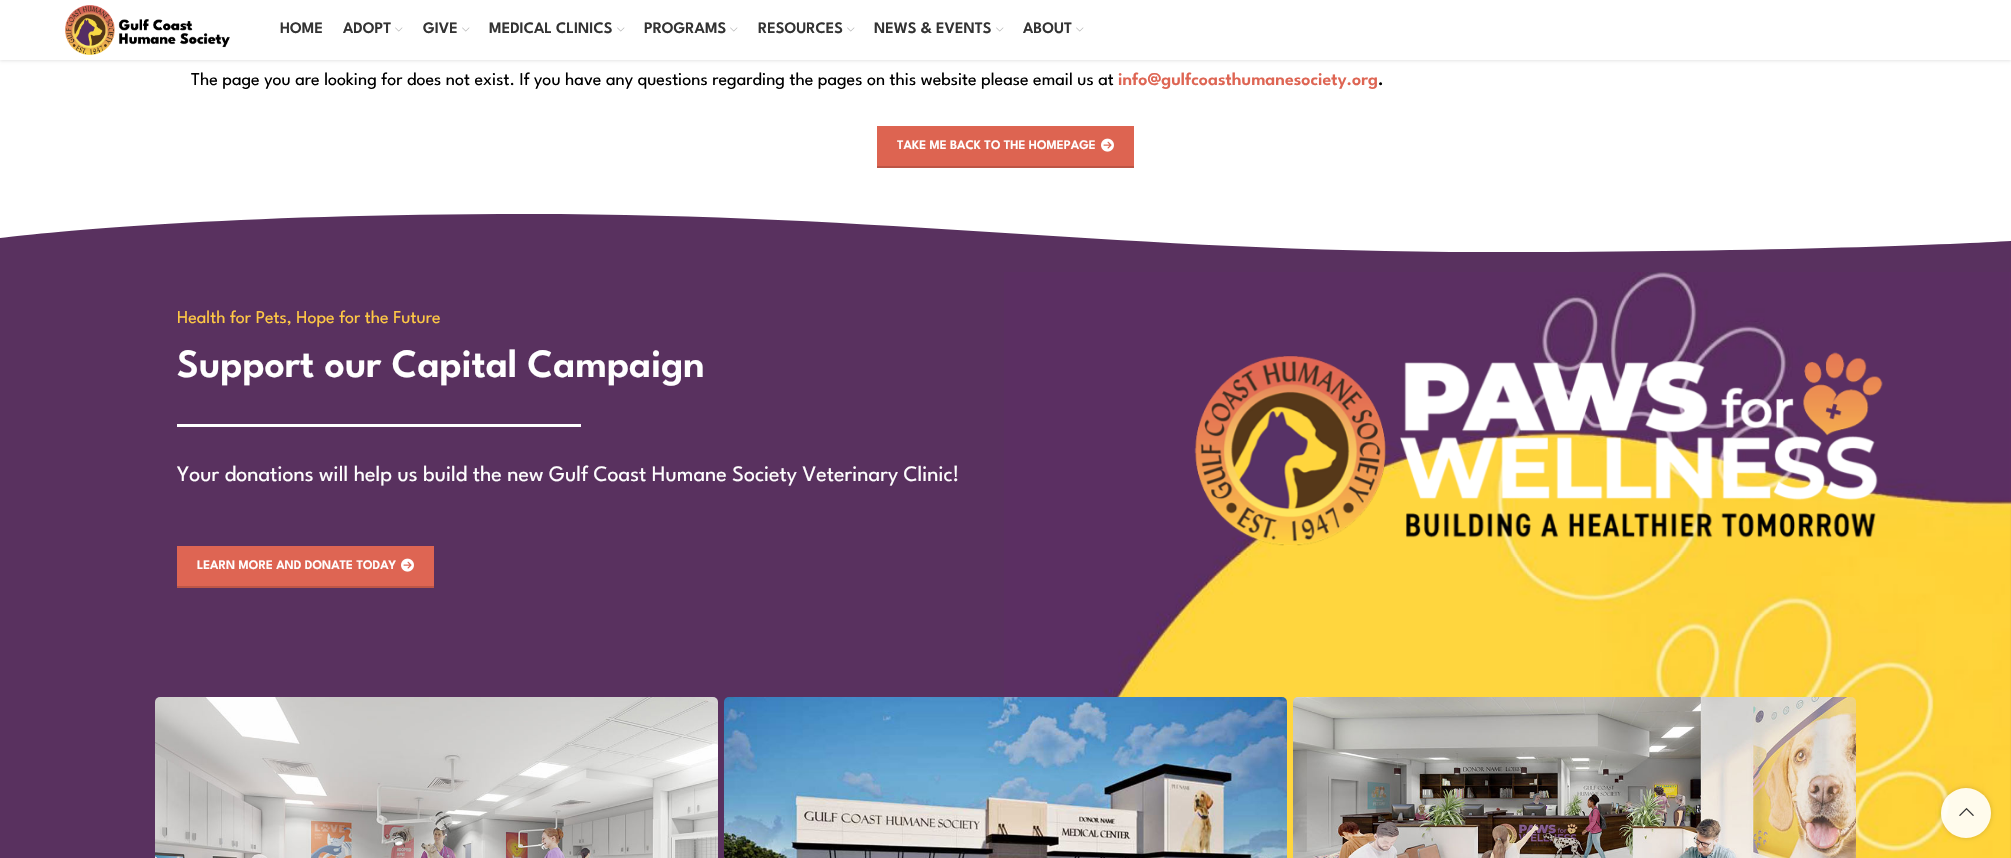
#include "include/core/SkBlurTypes.h"
#include "include/core/SkCanvas.h"
#include "include/core/SkData.h"
#include "include/core/SkFont.h"
#include "include/core/SkFontMgr.h"
#include "include/core/SkImage.h"
#include "include/core/SkMaskFilter.h"
#include "include/core/SkPaint.h"
#include "include/core/SkPathBuilder.h"
#include "include/core/SkTextBlob.h"
#include "include/effects/SkDashPathEffect.h"
#include "include/effects/SkGradientShader.h"
#include "include/utils/SkParsePath.h"

extern sk_sp<SkFontMgr> fontMgr;

void draw(SkCanvas* canvas) {
    SkPaint p;
    p.setAntiAlias(true);
    auto font = [&](const char* family, int weight, float size, bool italic = false) {
        SkFontStyle style(weight, SkFontStyle::kNormal_Width,
            italic ? SkFontStyle::kItalic_Slant : SkFontStyle::kUpright_Slant);
        SkFont result(fontMgr->matchFamilyStyle(family, style), size);
        result.setSubpixel(true);
        return result;
    };
    auto drawPhoto = [&](const char* path, float l, float t, float r, float b) {
        auto image = SkImages::DeferredFromEncodedData(SkData::MakeFromFileName(path));
        canvas->drawImageRect(image, SkRect::MakeLTRB(l, t, r, b), SkSamplingOptions());
    };
    canvas->clear(0xFFFFFFFF);
    p.setColor(0x1A000000);
    p.setMaskFilter(SkMaskFilter::MakeBlur(kNormal_SkBlurStyle, 1.5f));
    canvas->drawRect(SkRect::MakeLTRB(0, 1, 2011, 61), p);
    p.setMaskFilter(nullptr);
    p.setColor(0xFFFFFFFF);
    canvas->drawRect(SkRect::MakeLTRB(0, 0, 2011, 60), p);
    drawPhoto("media/1.png", 65, 5, 230, 55);
    auto font1 = font("League Spartan", 600, 16);
    p.setColor(0xFF333333);
    canvas->drawString("HOME", 280, 33, font1, p);
    canvas->drawString("ADOPT", 343, 33, font1, p);
    drawPhoto("media/2.png", 395, 27, 403, 32);
    canvas->drawString("GIVE", 423, 33, font1, p);
    drawPhoto("media/2.png", 462, 27, 470, 32);
    canvas->drawString("MEDICAL CLINICS", 489, 33, font1, p);
    drawPhoto("media/2.png", 617, 27, 625, 32);
    canvas->drawString("PROGRAMS", 644, 33, font1, p);
    drawPhoto("media/2.png", 730, 27, 738, 32);
    canvas->drawString("RESOURCES", 758, 33, font1, p);
    drawPhoto("media/2.png", 847, 27, 855, 32);
    canvas->drawString("NEWS & EVENTS", 874, 33, font1, p);
    drawPhoto("media/2.png", 996, 27, 1004, 32);
    canvas->drawString("ABOUT", 1023, 33, font1, p);
    drawPhoto("media/2.png", 1076, 27, 1084, 32);
    auto font2 = font("League Spartan", 400, 18);
    p.setColor(0xFF000000);
    canvas->drawString("The page you are looking for does not exist. If you have any questions regarding the pages on this website please email us at", 191, 85, font2, p);
    auto font3 = font("League Spartan", 600, 18);
    p.setColor(0xFFDE6553);
    canvas->drawString("info@gulfcoasthumanesociety.org", 1118, 85, font3, p);
    p.setColor(0xFF000000);
    canvas->drawString(".", 1378, 85, font3, p);
    p.setColor(0xFFDD6451);
    canvas->drawRect(SkRect::MakeLTRB(877, 126, 1134, 166), p);
    p.setColor(0xFFBC5545);
    canvas->drawRect(SkRect::MakeLTRB(877, 166, 1134, 168), p);
    auto font4 = font("League Spartan", 600, 13);
    p.setColor(0xFFFFFFFF);
    canvas->drawString("TAKE ME BACK TO THE HOMEPAGE", 897, 149, font4, p);
    drawPhoto("media/3.png", 1101, 138, 1114, 152);
    p.setColor(0xFF59315F);
    canvas->drawRect(SkRect::MakeLTRB(0, 214, 2011, 858), p);
    canvas->save();
    canvas->clipRect(SkRect::MakeLTRB(0, 203, 2011, 252));
    p.setColor(0xFFFFFFFF);
    canvas->drawPath(SkPathBuilder().moveTo(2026, 240).cubicTo(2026, 240, 1846, 252, 1484, 252).cubicTo(1122, 252, 889, 214, 527, 214).cubicTo(165, 214, -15, 240, -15, 240).lineTo(-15, 202).lineTo(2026, 202).close().detach(), p);
    canvas->restore();
    drawPhoto("media/4.png", 1004, 272, 2011, 858);
    p.setColor(0xFFFFC845);
    canvas->drawString("Health for Pets, Hope for the Future", 177, 323, font2, p);
    auto font5 = font("League Spartan", 600, 40);
    p.setColor(0xFFFFFFFF);
    canvas->drawString("Support our Capital Campaign", 177, 377, font5, p);
    canvas->drawRect(SkRect::MakeLTRB(177, 424, 581, 427), p);
    auto font6 = font("League Spartan", 400, 22);
    canvas->drawString("Your donations will help us build the new Gulf Coast Humane Society Veterinary Clinic!", 177, 481, font6, p);
    p.setColor(0xFFDE6553);
    canvas->drawRect(SkRect::MakeLTRB(177, 546, 434, 586), p);
    p.setColor(0xFFBD5647);
    canvas->drawRect(SkRect::MakeLTRB(177, 586, 434, 588), p);
    p.setColor(0xFFFFFFFF);
    canvas->drawString("LEARN MORE AND DONATE TODAY", 197, 569, font4, p);
    drawPhoto("media/5.png", 401, 558, 414, 572);
    drawPhoto("media/6.png", 1194, 352, 1883, 546);
    drawPhoto("media/7.png", 155, 697, 718, 858);
    drawPhoto("media/8.png", 724, 697, 1287, 858);
    drawPhoto("media/9.png", 1293, 697, 1856, 858);
    canvas->save();
    canvas->clipPath(SkPathBuilder(SkPathFillType::kEvenOdd).moveTo(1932, 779).lineTo(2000, 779).lineTo(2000, 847).lineTo(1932, 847).close().moveTo(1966, 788).cubicTo(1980, 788, 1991, 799, 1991, 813).cubicTo(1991, 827, 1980, 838, 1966, 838).cubicTo(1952, 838, 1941, 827, 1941, 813).cubicTo(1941, 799, 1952, 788, 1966, 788).close().detach(), true);
    p.setColor(0x2B000000);
    p.setMaskFilter(SkMaskFilter::MakeBlur(kNormal_SkBlurStyle, 2.5f));
    canvas->drawRoundRect(SkRect::MakeLTRB(1941, 788, 1991, 838), 25, 25, p);
    p.setMaskFilter(nullptr);
    canvas->restore();
    p.setColor(0xE6FFFFFF);
    canvas->drawCircle(1966, 813, 25, p);
    drawPhoto("media/10.png", 1959, 807, 1974, 816);
}
